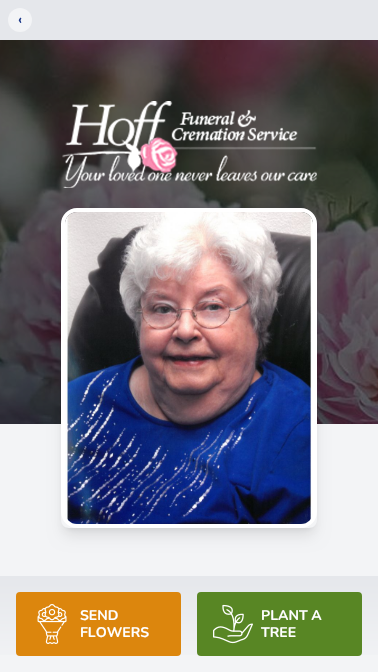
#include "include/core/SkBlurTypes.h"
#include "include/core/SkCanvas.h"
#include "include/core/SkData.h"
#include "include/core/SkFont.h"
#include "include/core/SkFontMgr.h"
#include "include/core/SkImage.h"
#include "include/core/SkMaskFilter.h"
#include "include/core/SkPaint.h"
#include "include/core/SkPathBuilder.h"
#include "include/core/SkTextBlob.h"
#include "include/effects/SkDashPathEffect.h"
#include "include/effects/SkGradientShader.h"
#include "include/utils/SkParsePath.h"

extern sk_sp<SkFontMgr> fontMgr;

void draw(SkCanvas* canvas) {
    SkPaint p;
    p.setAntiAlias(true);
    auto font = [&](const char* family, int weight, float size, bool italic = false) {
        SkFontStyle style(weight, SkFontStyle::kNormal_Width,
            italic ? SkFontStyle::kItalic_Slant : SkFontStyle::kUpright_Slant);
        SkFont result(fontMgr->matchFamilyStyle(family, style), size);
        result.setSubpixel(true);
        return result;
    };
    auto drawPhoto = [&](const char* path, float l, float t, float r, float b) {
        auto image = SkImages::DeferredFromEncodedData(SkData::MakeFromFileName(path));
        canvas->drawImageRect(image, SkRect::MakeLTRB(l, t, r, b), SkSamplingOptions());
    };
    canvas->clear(0xFFF3F4F6);
    p.setColor(0xFFE5E7EB);
    canvas->drawRect(SkRect::MakeLTRB(0, 0, 378, 40), p);
    p.setColor(0xFFF3F4F6);
    canvas->drawCircle(20, 20, 12, p);
    auto font1 = font("Nunito", 700, 14);
    p.setColor(0xFF1E3A8A);
    canvas->drawString("‹", 18, 24, font1, p);
    drawPhoto("media/1.png", 0, 40, 378, 424);
    drawPhoto("media/2.png", 62, 101, 317, 188);
    canvas->save();
    canvas->clipPath(SkPathBuilder(SkPathFillType::kEvenOdd).moveTo(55, 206).lineTo(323, 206).lineTo(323, 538).lineTo(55, 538).close().moveTo(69, 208).lineTo(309, 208).cubicTo(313.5f, 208, 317, 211.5f, 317, 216).lineTo(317, 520).cubicTo(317, 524.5f, 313.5f, 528, 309, 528).lineTo(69, 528).cubicTo(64.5f, 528, 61, 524.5f, 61, 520).lineTo(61, 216).cubicTo(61, 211.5f, 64.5f, 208, 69, 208).close().detach(), true);
    p.setColor(0x1A000000);
    p.setMaskFilter(SkMaskFilter::MakeBlur(kNormal_SkBlurStyle, 3));
    canvas->drawRoundRect(SkRect::MakeLTRB(65, 216, 313, 528), 4, 4, p);
    p.setMaskFilter(nullptr);
    canvas->restore();
    canvas->save();
    canvas->clipPath(SkPathBuilder(SkPathFillType::kEvenOdd).moveTo(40, 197).lineTo(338, 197).lineTo(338, 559).lineTo(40, 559).close().moveTo(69, 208).lineTo(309, 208).cubicTo(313.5f, 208, 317, 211.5f, 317, 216).lineTo(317, 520).cubicTo(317, 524.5f, 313.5f, 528, 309, 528).lineTo(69, 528).cubicTo(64.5f, 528, 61, 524.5f, 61, 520).lineTo(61, 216).cubicTo(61, 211.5f, 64.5f, 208, 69, 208).close().detach(), true);
    p.setMaskFilter(SkMaskFilter::MakeBlur(kNormal_SkBlurStyle, 7.5f));
    canvas->drawRoundRect(SkRect::MakeLTRB(64, 221, 314, 535), 5, 5, p);
    p.setMaskFilter(nullptr);
    canvas->restore();
    p.setStyle(SkPaint::kStroke_Style);
    p.setStrokeWidth(4);
    p.setColor(0xFFFFFFFF);
    canvas->drawRoundRect(SkRect::MakeLTRB(63, 210, 315, 526), 14, 14, p);
    drawPhoto("media/3.png", 65, 212, 313, 524);
    p.setStyle(SkPaint::kFill_Style);
    {
        const SkColor colors[] = {0xFFE5E7EB, 0xFFF3F4F6};
        const float stops[] = {0, 1};
        const SkPoint ends[] = {{189, 576}, {189, 672}};
        p.setShader(SkGradientShader::MakeLinear(ends, colors, stops, 2, SkTileMode::kClamp));
        p.setAlpha(255);
    }
    canvas->drawRect(SkRect::MakeLTRB(0, 576, 378, 655), p);
    p.setShader(nullptr);
    p.setColor(0xFFDC860D);
    canvas->drawRoundRect(SkRect::MakeLTRB(16, 592, 181, 656), 4, 4, p);
    drawPhoto("media/4.png", 37, 604, 67, 644);
    p.setColor(0xFFFFFFFF);
    canvas->drawString("SEND", 80, 620, font1, p);
    canvas->drawString("FLOWERS", 80, 637, font1, p);
    p.setColor(0xFF588624);
    canvas->drawRoundRect(SkRect::MakeLTRB(197, 592, 362, 656), 4, 4, p);
    drawPhoto("media/5.png", 213, 604, 253, 644);
    p.setColor(0xFFFFFFFF);
    canvas->drawString("PLANT A", 261, 620, font1, p);
    canvas->drawString("TREE", 261, 637, font1, p);
}
